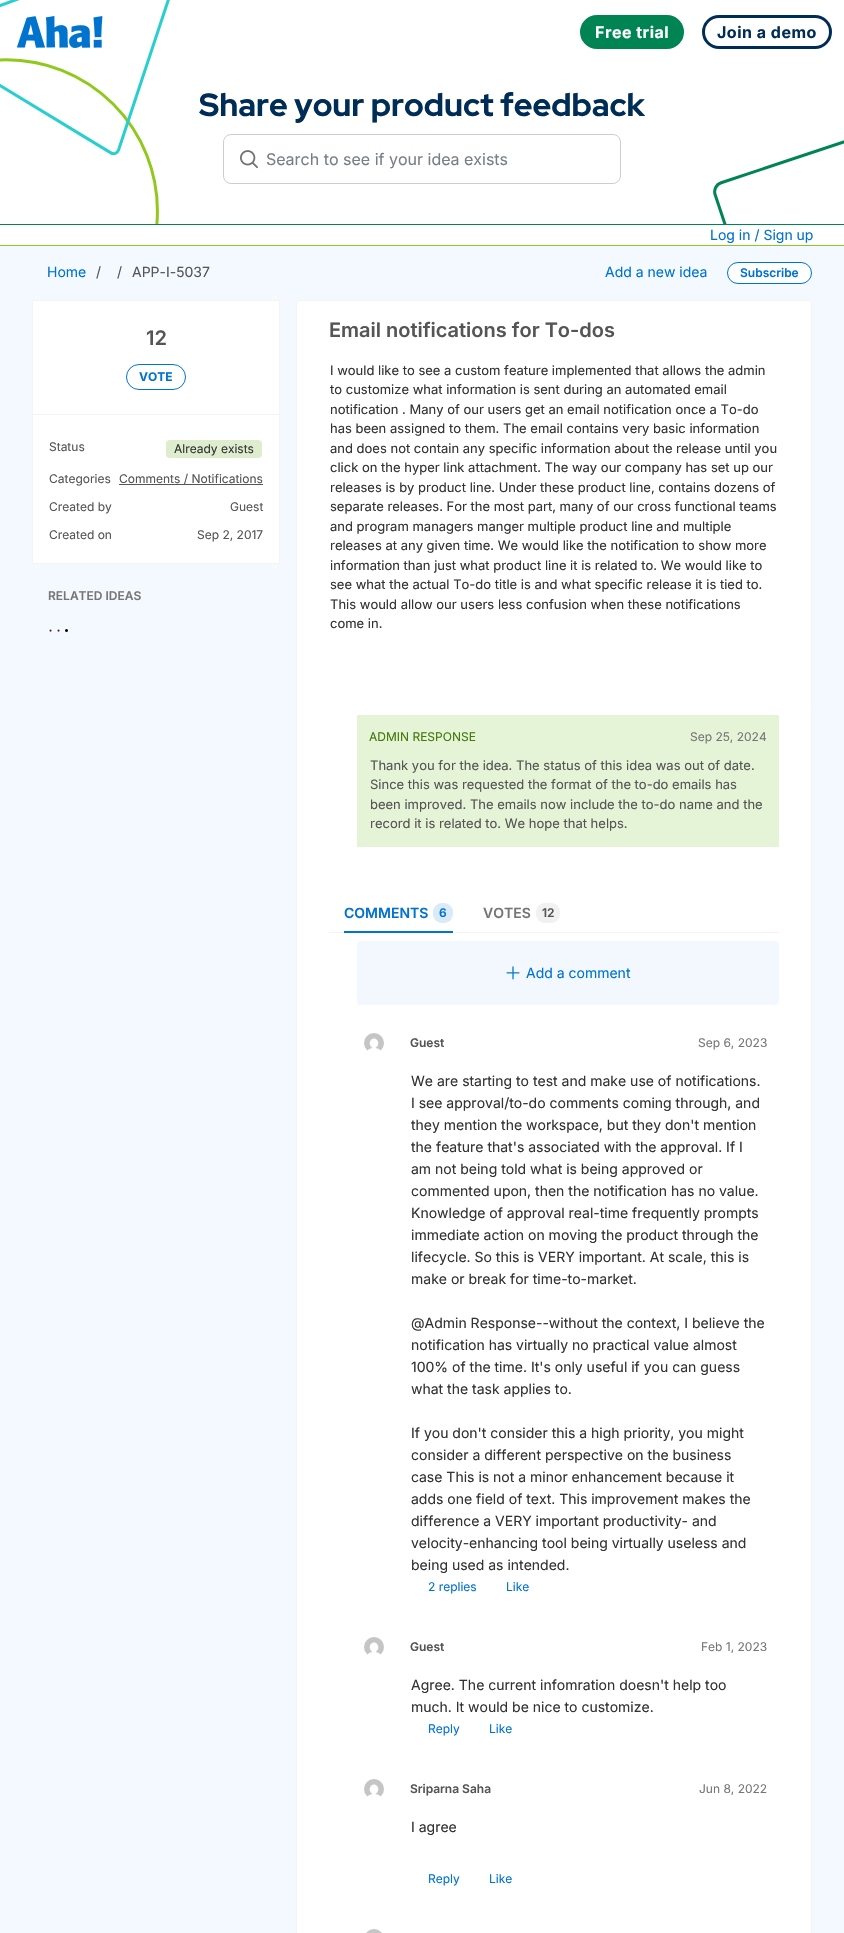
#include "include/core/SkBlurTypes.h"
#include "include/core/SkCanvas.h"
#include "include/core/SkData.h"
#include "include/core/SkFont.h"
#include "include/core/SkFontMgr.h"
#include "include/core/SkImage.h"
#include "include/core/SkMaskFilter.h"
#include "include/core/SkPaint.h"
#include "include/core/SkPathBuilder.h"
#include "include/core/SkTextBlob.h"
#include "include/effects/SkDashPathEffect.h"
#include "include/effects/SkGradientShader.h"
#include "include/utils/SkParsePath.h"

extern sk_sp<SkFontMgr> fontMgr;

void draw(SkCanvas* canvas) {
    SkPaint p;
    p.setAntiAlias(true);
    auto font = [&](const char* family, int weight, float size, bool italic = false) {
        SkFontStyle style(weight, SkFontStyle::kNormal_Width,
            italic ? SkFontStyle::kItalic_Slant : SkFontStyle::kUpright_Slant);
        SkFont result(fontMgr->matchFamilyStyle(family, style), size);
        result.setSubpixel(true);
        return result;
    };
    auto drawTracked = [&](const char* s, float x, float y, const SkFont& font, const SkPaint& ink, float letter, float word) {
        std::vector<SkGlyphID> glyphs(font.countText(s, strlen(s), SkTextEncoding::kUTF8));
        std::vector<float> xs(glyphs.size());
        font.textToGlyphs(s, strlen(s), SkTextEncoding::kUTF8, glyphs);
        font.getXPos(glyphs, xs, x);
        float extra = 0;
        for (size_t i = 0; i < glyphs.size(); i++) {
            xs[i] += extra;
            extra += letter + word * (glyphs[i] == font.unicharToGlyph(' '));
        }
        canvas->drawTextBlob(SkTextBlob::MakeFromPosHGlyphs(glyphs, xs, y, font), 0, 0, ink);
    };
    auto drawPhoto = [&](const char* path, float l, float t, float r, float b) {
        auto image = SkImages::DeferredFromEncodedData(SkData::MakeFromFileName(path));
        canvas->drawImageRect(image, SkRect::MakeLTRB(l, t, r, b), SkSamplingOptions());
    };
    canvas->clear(0xFFF3F9FE);
    p.setColor(0xFFFFFFFF);
    canvas->drawRect(SkRect::MakeLTRB(0, 0, 844, 224), p);
    drawPhoto("media/2.png", 0, 0, 844, 224);
    drawPhoto("media/1.png", 17, 16, 103, 48);
    p.setColor(0xFF018454);
    canvas->drawRoundRect(SkRect::MakeLTRB(581.5f, 16.5f, 682.5f, 47.5f), 15.5f, 15.5f, p);
    p.setStyle(SkPaint::kStroke_Style);
    p.setStrokeWidth(3);
    canvas->drawRoundRect(SkRect::MakeLTRB(581.5f, 16.5f, 682.5f, 47.5f), 15.5f, 15.5f, p);
    auto font1 = font("Inter", 700, 16);
    p.setStyle(SkPaint::kFill_Style);
    p.setColor(0xFFFFFFFF);
    drawTracked("Free trial", 595, 38, font1, p, 0.5f, 0);
    p.setStyle(SkPaint::kStroke_Style);
    p.setColor(0xFF002D56);
    canvas->drawRoundRect(SkRect::MakeLTRB(703.5f, 16.5f, 830.5f, 47.5f), 15.5f, 15.5f, p);
    p.setStyle(SkPaint::kFill_Style);
    drawTracked("Join a demo", 717, 38, font1, p, 0.5f, 0);
    auto font2 = font("Red Hat Display", 800, 32);
    canvas->drawString("Share your product feedback", 199, 116, font2, p);
    p.setStyle(SkPaint::kStroke_Style);
    p.setStrokeWidth(1);
    p.setColor(0xFFCDCDCD);
    canvas->drawRoundRect(SkRect::MakeLTRB(223.5f, 134.5f, 620.5f, 183.5f), 7.5f, 7.5f, p);
    drawPhoto("media/3.png", 240, 150, 258, 169);
    auto font3 = font("Inter", 400, 16);
    p.setStyle(SkPaint::kFill_Style);
    p.setColor(0xFF767E86);
    canvas->drawString("Search to see if your idea exists", 266, 165, font3, p);
    {
        const struct { float l, t, r, b; SkColor color; } items[] = {
            {0, 225, 844, 245, 0xFFFFFFFF},
            {0, 224, 844, 225, 0xFF018454},
            {0, 245, 844, 246, 0xFF90C91D},
        };
        for (auto [l, t, r, b, color] : items) {
            p.setColor(color);
            canvas->drawRect(SkRect::MakeLTRB(l, t, r, b), p);
        }
    }
    auto font4 = font("Inter", 400, 14);
    p.setColor(0xFF0073CF);
    canvas->drawString("Log in / Sign up", 710, 240, font4, p);
    canvas->drawString("Home", 47, 277, font4, p);
    p.setColor(0xFF555555);
    {
        const struct { const char* s; float x, y; } items[] = {
            {"/", 96, 277},
            {"/", 117, 277},
            {"APP-I-5037", 132, 277},
        };
        for (auto [s, x, y] : items) {
            canvas->drawString(s, x, y, font4, p);
        }
    }
    p.setColor(0xFF0073CF);
    canvas->drawString("Add a new idea", 605, 277, font4, p);
    p.setColor(0xFFFFFFFF);
    canvas->drawRoundRect(SkRect::MakeLTRB(727.5f, 262.5f, 811.5f, 283.5f), 10.5f, 10.5f, p);
    p.setStyle(SkPaint::kStroke_Style);
    p.setColor(0xFF0073CF);
    canvas->drawRoundRect(SkRect::MakeLTRB(727.5f, 262.5f, 811.5f, 283.5f), 10.5f, 10.5f, p);
    auto font5 = font("Inter", 600, 12);
    p.setStyle(SkPaint::kFill_Style);
    canvas->drawString("Subscribe", 740, 277, font5, p);
    p.setColor(0xFFFFFFFF);
    canvas->drawRect(SkRect::MakeLTRB(32.5f, 300.5f, 279.5f, 563.5f), p);
    p.setStyle(SkPaint::kStroke_Style);
    p.setColor(0xFFF4F4F4);
    canvas->drawRect(SkRect::MakeLTRB(32.5f, 300.5f, 279.5f, 563.5f), p);
    auto font6 = font("Inter", 600, 20);
    p.setStyle(SkPaint::kFill_Style);
    p.setColor(0xFF555555);
    canvas->drawString("12", 146, 345, font6, p);
    p.setStyle(SkPaint::kStroke_Style);
    p.setColor(0xFF0073CF);
    canvas->drawRoundRect(SkRect::MakeLTRB(126.5f, 364.5f, 185.5f, 389.5f), 12.5f, 12.5f, p);
    auto font7 = font("Inter", 700, 12);
    p.setStyle(SkPaint::kFill_Style);
    canvas->drawString("VOTE", 139, 381, font7, p);
    p.setColor(0xFFF4F4F4);
    canvas->drawRect(SkRect::MakeLTRB(33, 414, 279, 415), p);
    auto font8 = font("Inter", 400, 12);
    p.setColor(0xFF555555);
    canvas->drawString("Status", 49, 451, font8, p);
    p.setColor(0xFFDFEDCF);
    canvas->drawRoundRect(SkRect::MakeLTRB(166, 440, 262, 458), 4, 4, p);
    p.setColor(0xFF333333);
    canvas->drawString("Already exists", 174, 453, font8, p);
    p.setColor(0xFF555555);
    canvas->drawString("Categories", 49, 483, font8, p);
    canvas->drawRect(SkRect::MakeLTRB(119, 484, 263, 485), p);
    {
        const struct { const char* s; float x, y; } items[] = {
            {"Comments / Notifications", 119, 483},
            {"Created by", 49, 511},
            {"Guest", 230, 511},
            {"Created on", 49, 539},
            {"Sep 2, 2017", 197, 539},
        };
        for (auto [s, x, y] : items) {
            canvas->drawString(s, x, y, font8, p);
        }
    }
    p.setColor(0xFF767676);
    canvas->drawString("RELATED IDEAS", 48, 600, font5, p);
    drawPhoto("media/4.png", 48, 628, 69, 633);
    p.setColor(0xFFFFFFFF);
    canvas->drawRoundRect(SkRect::MakeLTRB(296.5f, 300.5f, 811.5f, 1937.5f), 3.5f, 3.5f, p);
    p.setStyle(SkPaint::kStroke_Style);
    p.setColor(0xFFF4F4F4);
    canvas->drawRoundRect(SkRect::MakeLTRB(296.5f, 300.5f, 811.5f, 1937.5f), 3.5f, 3.5f, p);
    p.setStyle(SkPaint::kFill_Style);
    p.setColor(0xFF555555);
    canvas->drawString("Email notifications for To-dos", 329, 337, font6, p);
    auto font9 = font("Inter", 400, 13);
    p.setColor(0xFF333333);
    {
        const struct { const char* s; float x, y; } items[] = {
            {"I would like to see a custom feature implemented that allows the admin", 330, 375},
            {"to customize what information is sent during an automated email", 330, 394},
            {"notification . Many of our users get an email notification once a To-do", 330, 414},
            {"has been assigned to them. The email contains very basic information", 330, 433},
            {"and does not contain any specific information about the release until you", 330, 453},
            {"click on the hyper link attachment. The way our company has set up our", 330, 472},
            {"releases is by product line. Under these product line, contains dozens of", 330, 492},
            {"separate releases. For the most part, many of our cross functional teams", 330, 511},
            {"and program managers manger multiple product line and multiple", 330, 531},
            {"releases at any given time. We would like the notification to show more", 330, 550},
            {"information than just what product line it is related to. We would like to", 330, 570},
            {"see what the actual To-do title is and what specific release it is tied to.", 330, 589},
            {"This would allow our users less confusion when these notifications", 330, 609},
            {"come in.", 330, 628},
        };
        for (auto [s, x, y] : items) {
            canvas->drawString(s, x, y, font9, p);
        }
    }
    p.setColor(0xFFE5F3D6);
    canvas->drawRect(SkRect::MakeLTRB(357, 715, 779, 847), p);
    p.setColor(0xFF42790B);
    canvas->drawString("ADMIN RESPONSE", 369, 741, font8, p);
    p.setColor(0xFF767676);
    canvas->drawString("Sep 25, 2024", 690, 741, font8, p);
    p.setColor(0xFF555555);
    {
        const struct { const char* s; float x, y; } items[] = {
            {"Thank you for the idea. The status of this idea was out of date.", 370, 770},
            {"Since this was requested the format of the to-do emails has", 370, 789},
            {"been improved. The emails now include the to-do name and the", 370, 809},
            {"record it is related to. We hope that helps.", 370, 828},
        };
        for (auto [s, x, y] : items) {
            canvas->drawString(s, x, y, font9, p);
        }
    }
    p.setColor(0xFFF4F4F4);
    canvas->drawRect(SkRect::MakeLTRB(329, 932, 779, 933), p);
    p.setColor(0xFF0073CF);
    canvas->drawRect(SkRect::MakeLTRB(344, 931, 453, 933), p);
    auto font10 = font("Inter", 600, 14);
    canvas->drawString("COMMENTS", 344, 918, font10, p);
    p.setColor(0xFFD9EAF8);
    canvas->drawRoundRect(SkRect::MakeLTRB(433, 903, 453, 923), 9, 9, p);
    p.setColor(0xFF0073CF);
    canvas->drawString("6", 439, 917, font5, p);
    p.setColor(0xFF767676);
    canvas->drawString("VOTES", 483, 918, font10, p);
    p.setColor(0xFFF1F1F1);
    canvas->drawRoundRect(SkRect::MakeLTRB(536, 903, 560, 923), 9, 9, p);
    p.setColor(0xFF555555);
    canvas->drawString("12", 542, 917, font5, p);
    p.setColor(0xFFF2F8FD);
    canvas->drawRoundRect(SkRect::MakeLTRB(357, 941, 779, 1005), 4, 4, p);
    drawPhoto("media/5.png", 506, 966, 520, 980);
    p.setColor(0xFF0073CF);
    canvas->drawString("Add a comment", 526, 978, font4, p);
    drawPhoto("media/6.png", 364, 1033, 384, 1051);
    p.setColor(0xFF555555);
    canvas->drawString("Guest", 410, 1047, font5, p);
    p.setColor(0xFF767676);
    canvas->drawString("Sep 6, 2023", 698, 1047, font8, p);
    p.setColor(0xFF333333);
    {
        const struct { const char* s; float x, y; } items[] = {
            {"We are starting to test and make use of notifications.", 411, 1086},
            {"I see approval/to-do comments coming through, and", 411, 1108},
            {"they mention the workspace, but they don't mention", 411, 1130},
            {"the feature that's associated with the approval. If I", 411, 1152},
            {"am not being told what is being approved or", 411, 1174},
            {"commented upon, then the notification has no value.", 411, 1196},
            {"Knowledge of approval real-time frequently prompts", 411, 1218},
            {"immediate action on moving the product through the", 411, 1240},
            {"lifecycle. So this is VERY important. At scale, this is", 411, 1262},
            {"make or break for time-to-market.", 411, 1284},
            {"@Admin Response--without the context, I believe the", 411, 1328},
            {"notification has virtually no practical value almost", 411, 1350},
            {"100% of the time. It's only useful if you can guess", 411, 1372},
            {"what the task applies to.", 411, 1394},
            {"If you don't consider this a high priority, you might", 411, 1438},
            {"consider a different perspective on the business", 411, 1460},
            {"case This is not a minor enhancement because it", 411, 1482},
            {"adds one field of text. This improvement makes the", 411, 1504},
            {"difference a VERY important productivity- and", 411, 1526},
            {"velocity-enhancing tool being virtually useless and", 411, 1548},
            {"being used as intended.", 411, 1570},
        };
        for (auto [s, x, y] : items) {
            canvas->drawString(s, x, y, font4, p);
        }
    }
    p.setColor(0xFF0073CF);
    canvas->drawString("2 replies", 428, 1591, font8, p);
    canvas->drawString("Like", 506, 1591, font8, p);
    drawPhoto("media/6.png", 364, 1637, 384, 1655);
    p.setColor(0xFF555555);
    canvas->drawString("Guest", 410, 1651, font5, p);
    p.setColor(0xFF767676);
    canvas->drawString("Feb 1, 2023", 701, 1651, font8, p);
    p.setColor(0xFF333333);
    canvas->drawString("Agree. The current infomration doesn't help too", 411, 1690, font4, p);
    canvas->drawString("much. It would be nice to customize.", 411, 1712, font4, p);
    p.setColor(0xFF0073CF);
    canvas->drawString("Reply", 428, 1733, font8, p);
    canvas->drawString("Like", 489, 1733, font8, p);
    drawPhoto("media/6.png", 364, 1779, 384, 1797);
    p.setColor(0xFF555555);
    canvas->drawString("Sriparna Saha", 410, 1793, font5, p);
    p.setColor(0xFF767676);
    canvas->drawString("Jun 8, 2022", 699, 1793, font8, p);
    p.setColor(0xFF333333);
    canvas->drawString("I agree", 411, 1832, font4, p);
    p.setColor(0xFF0073CF);
    canvas->drawString("Reply", 428, 1883, font8, p);
    canvas->drawString("Like", 489, 1883, font8, p);
    drawPhoto("media/7.png", 366, 1929, 382, 1933);
}
